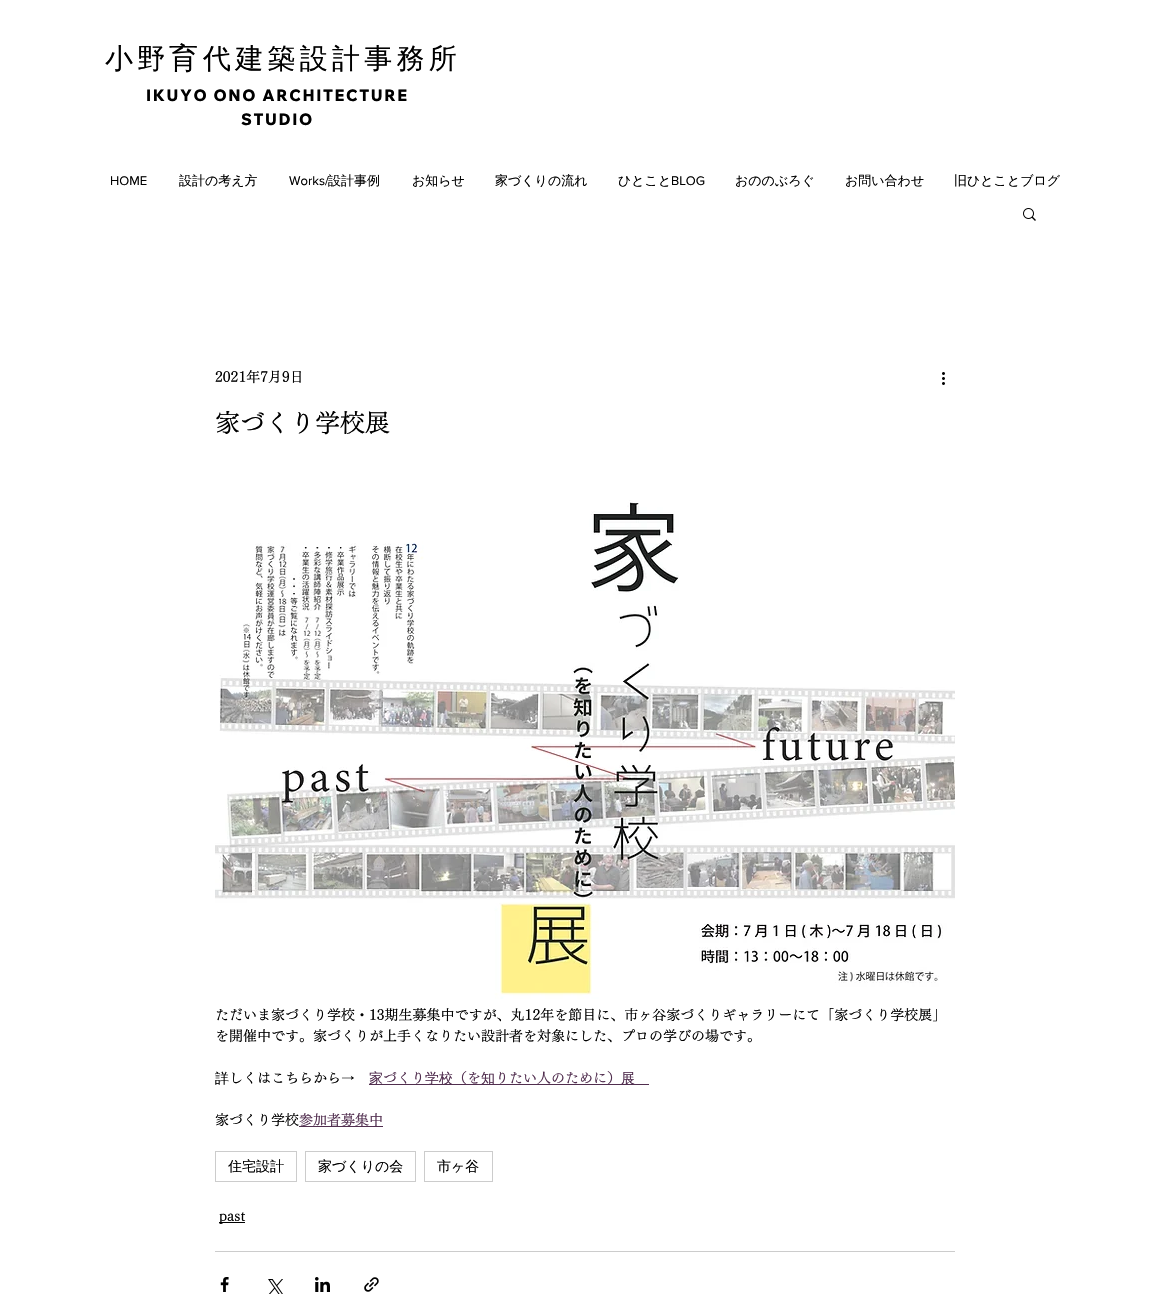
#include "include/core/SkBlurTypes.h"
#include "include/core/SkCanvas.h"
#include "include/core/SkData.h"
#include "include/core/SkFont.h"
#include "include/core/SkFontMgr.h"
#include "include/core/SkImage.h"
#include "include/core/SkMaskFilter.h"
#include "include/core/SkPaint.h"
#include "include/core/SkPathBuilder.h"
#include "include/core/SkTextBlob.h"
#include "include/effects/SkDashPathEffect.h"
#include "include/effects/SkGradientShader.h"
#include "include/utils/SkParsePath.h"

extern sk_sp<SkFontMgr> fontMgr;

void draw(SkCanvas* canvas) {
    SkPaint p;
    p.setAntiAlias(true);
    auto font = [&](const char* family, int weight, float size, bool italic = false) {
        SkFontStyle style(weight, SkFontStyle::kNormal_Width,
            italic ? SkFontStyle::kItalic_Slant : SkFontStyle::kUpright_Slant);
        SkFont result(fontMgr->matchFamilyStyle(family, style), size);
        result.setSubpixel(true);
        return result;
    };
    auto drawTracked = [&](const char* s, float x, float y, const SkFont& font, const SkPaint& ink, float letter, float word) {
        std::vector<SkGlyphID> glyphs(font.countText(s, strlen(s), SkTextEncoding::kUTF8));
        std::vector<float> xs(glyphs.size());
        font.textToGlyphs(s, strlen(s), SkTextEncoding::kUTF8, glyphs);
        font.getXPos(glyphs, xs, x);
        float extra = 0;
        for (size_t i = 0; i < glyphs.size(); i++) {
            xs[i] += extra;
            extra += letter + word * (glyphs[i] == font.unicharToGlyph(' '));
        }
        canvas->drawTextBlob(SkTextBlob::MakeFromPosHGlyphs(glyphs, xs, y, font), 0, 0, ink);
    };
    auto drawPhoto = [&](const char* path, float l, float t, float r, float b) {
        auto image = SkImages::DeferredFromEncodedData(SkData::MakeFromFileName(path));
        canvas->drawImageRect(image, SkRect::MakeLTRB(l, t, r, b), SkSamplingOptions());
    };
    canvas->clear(0xFFFFFFFF);
    auto font1 = font("WenQuanYi Zen Hei", 500, 28);
    p.setColor(0xFF000000);
    drawTracked("小野", 105, 68, font1, p, 4.25f, 0);
    auto font2 = font("WenQuanYi Zen Hei", 500, 29);
    drawTracked("育", 169, 68, font2, p, 4.25f, 0);
    drawTracked("代建築設計事務所", 203, 68, font1, p, 4.25f, 0);
    auto font3 = font("Wix Madefor Text", 800, 16);
    drawTracked("IKUYO ONO ARCHITECTURE", 146, 101, font3, p, 1.6f, 0);
    drawTracked("STUDIO", 241, 125, font3, p, 1.6f, 0);
    auto font4 = font("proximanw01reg", 400, 13);
    canvas->drawString("HOME", 110, 185, font4, p);
    auto font5 = font("WenQuanYi Zen Hei", 500, 13);
    canvas->drawString("設計の考え方", 179, 185, font5, p);
    canvas->drawString("Works/", 289, 185, font4, p);
    {
        const struct { const char* s; float x, y; } items[] = {
            {"設計事例", 328, 185},
            {"お知らせ", 412, 185},
            {"家づくりの流れ", 495, 185},
            {"ひとこと", 618, 185},
        };
        for (auto [s, x, y] : items) {
            canvas->drawString(s, x, y, font5, p);
        }
    }
    canvas->drawString("BLOG", 671, 185, font4, p);
    {
        const struct { const char* s; float x, y; } items[] = {
            {"おののぶろぐ", 735, 185},
            {"お問い合わせ", 845, 185},
            {"旧ひとことブログ", 954, 185},
        };
        for (auto [s, x, y] : items) {
            canvas->drawString(s, x, y, font5, p);
        }
    }
    drawPhoto("media/1.png", 1023, 208, 1036, 221);
    auto font6 = font("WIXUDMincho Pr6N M", 500, 14);
    canvas->drawString("2021年7月9日", 215, 382, font6, p);
    drawPhoto("media/2.png", 942, 372, 945, 385);
    auto font7 = font("WIXUDMincho Pr6N M", 500, 25);
    canvas->drawString("家づくり学校展", 215, 432, font7, p);
    drawPhoto("media/3.png", 215, 500, 955, 999);
    canvas->drawString("ただいま家づくり学校・13期生募集中ですが、丸12年を節目に、市ヶ谷家づくりギャラリーにて「家づくり学校展」", 215, 1020, font6, p);
    canvas->drawString("を開催中です。家づくりが上手くなりたい設計者を対象にした、プロの学びの場です。", 215, 1041, font6, p);
    auto font8 = font("WenQuanYi Zen Hei", 500, 14);
    canvas->drawString("詳", 215, 1083, font8, p);
    canvas->drawString("しくはこちらから", 229, 1083, font6, p);
    canvas->drawString("→", 341, 1083, font8, p);
    p.setColor(0xFF512E4F);
    canvas->drawRect(SkRect::MakeLTRB(369, 1084, 649, 1085), p);
    canvas->drawString("家", 369, 1083, font8, p);
    canvas->drawString("づくり", 383, 1083, font6, p);
    canvas->drawString("学校", 425, 1083, font8, p);
    canvas->drawString("（を", 453, 1083, font6, p);
    canvas->drawString("知", 481, 1083, font8, p);
    canvas->drawString("りたい人のために）", 495, 1083, font6, p);
    canvas->drawString("展", 621, 1083, font8, p);
    p.setColor(0xFF000000);
    canvas->drawString("家づくり学校", 215, 1125, font6, p);
    p.setColor(0xFF512E4F);
    canvas->drawRect(SkRect::MakeLTRB(299, 1126, 383, 1127), p);
    canvas->drawString("参加者募集中", 299, 1125, font6, p);
    p.setStyle(SkPaint::kStroke_Style);
    p.setStrokeWidth(1);
    p.setColor(0xFFCCCCCC);
    canvas->drawRect(SkRect::MakeLTRB(215.5f, 1151.5f, 296.5f, 1181.5f), p);
    p.setStyle(SkPaint::kFill_Style);
    p.setColor(0xFF000000);
    canvas->drawString("住宅設計", 228, 1171, font8, p);
    p.setStyle(SkPaint::kStroke_Style);
    p.setColor(0xFFCCCCCC);
    canvas->drawRect(SkRect::MakeLTRB(305.5f, 1151.5f, 415.5f, 1181.5f), p);
    p.setStyle(SkPaint::kFill_Style);
    p.setColor(0xFF000000);
    canvas->drawString("家づくりの会", 318, 1171, font8, p);
    p.setStyle(SkPaint::kStroke_Style);
    p.setColor(0xFFCCCCCC);
    canvas->drawRect(SkRect::MakeLTRB(424.5f, 1151.5f, 492.5f, 1181.5f), p);
    p.setStyle(SkPaint::kFill_Style);
    p.setColor(0xFF000000);
    canvas->drawString("市ヶ谷", 437, 1171, font8, p);
    canvas->drawRect(SkRect::MakeLTRB(219, 1222, 245, 1223), p);
    canvas->drawString("past", 219, 1221, font6, p);
    p.setColor(0xFFCCCCCC);
    canvas->drawRect(SkRect::MakeLTRB(215, 1251, 955, 1252), p);
    drawPhoto("media/4.png", 220, 1277, 229, 1292);
    drawPhoto("media/5.png", 268, 1279, 283, 1294);
    drawPhoto("media/6.png", 315, 1277, 330, 1292);
    drawPhoto("media/7.png", 364, 1277, 379, 1292);
}
